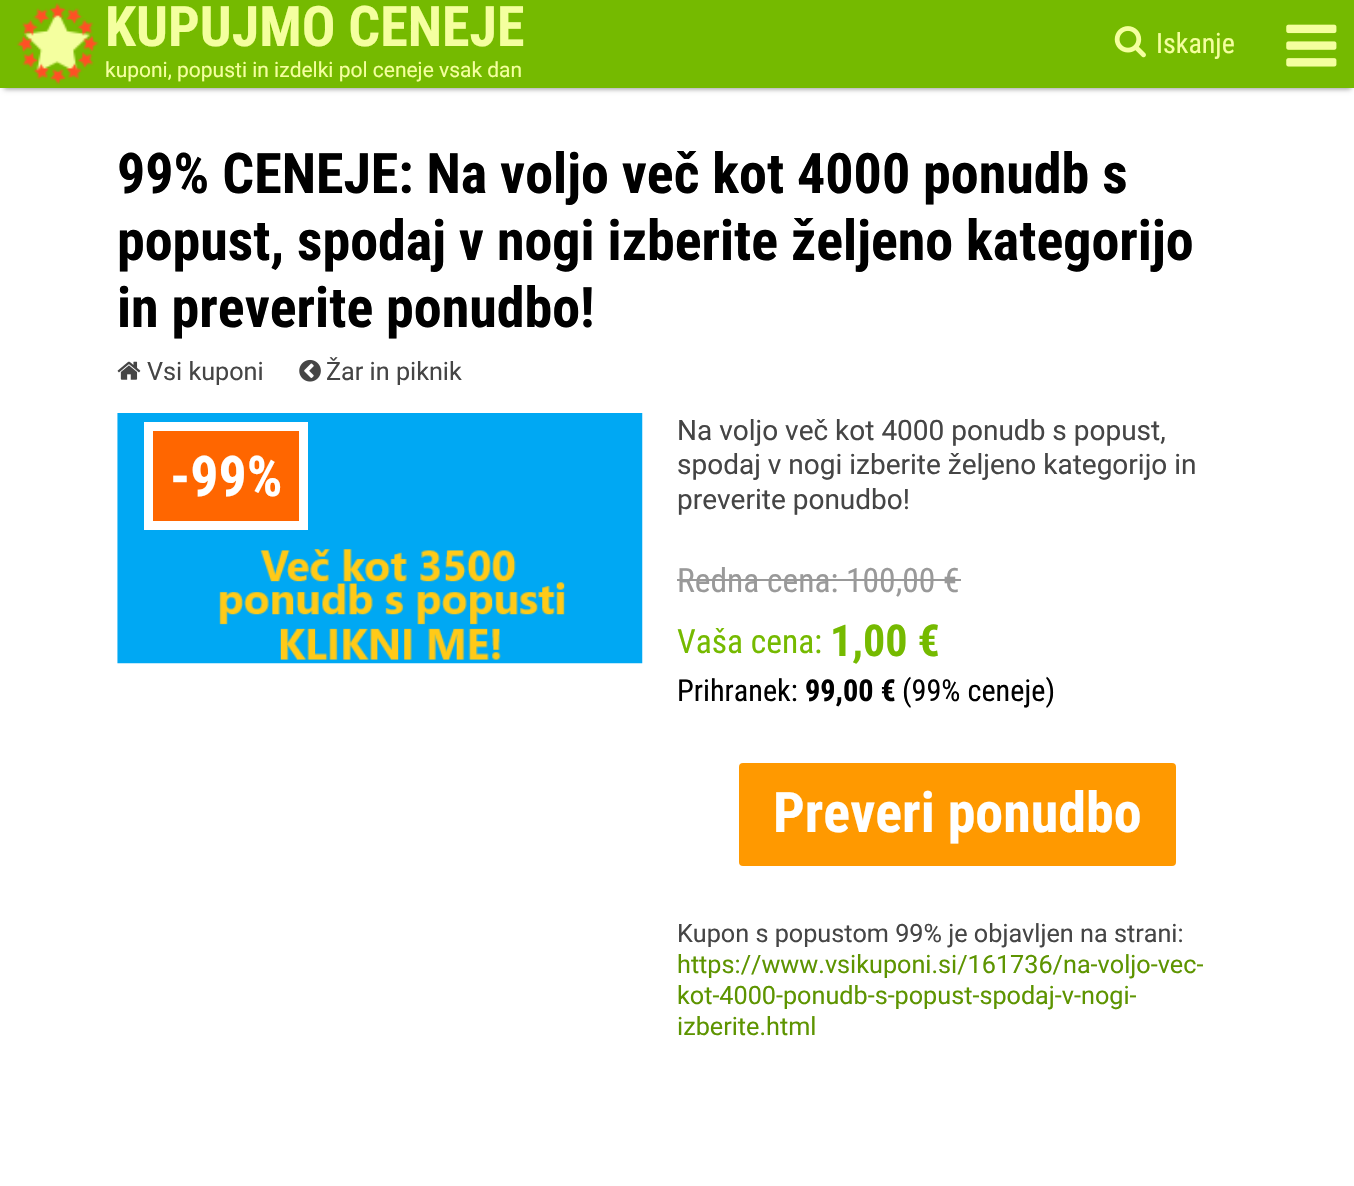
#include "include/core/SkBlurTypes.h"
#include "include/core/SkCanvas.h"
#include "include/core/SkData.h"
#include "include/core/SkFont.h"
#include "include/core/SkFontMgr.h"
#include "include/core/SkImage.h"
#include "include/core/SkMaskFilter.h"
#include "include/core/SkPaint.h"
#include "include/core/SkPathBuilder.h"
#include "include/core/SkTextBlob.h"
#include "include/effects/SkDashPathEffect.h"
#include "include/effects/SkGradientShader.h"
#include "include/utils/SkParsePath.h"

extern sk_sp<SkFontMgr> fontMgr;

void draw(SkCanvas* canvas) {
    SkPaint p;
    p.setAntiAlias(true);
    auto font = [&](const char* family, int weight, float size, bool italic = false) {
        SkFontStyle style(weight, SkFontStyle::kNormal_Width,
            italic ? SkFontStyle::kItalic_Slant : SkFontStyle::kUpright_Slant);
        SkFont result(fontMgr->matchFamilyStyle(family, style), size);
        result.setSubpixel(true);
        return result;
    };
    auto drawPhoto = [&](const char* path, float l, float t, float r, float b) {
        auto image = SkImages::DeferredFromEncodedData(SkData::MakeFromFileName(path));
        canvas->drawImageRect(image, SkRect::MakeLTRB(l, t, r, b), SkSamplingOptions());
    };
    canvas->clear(0xFFFFFFFF);
    p.setColor(0xFF999999);
    p.setMaskFilter(SkMaskFilter::MakeBlur(kNormal_SkBlurStyle, 2.5f));
    canvas->drawRect(SkRect::MakeLTRB(4, 9, 1351, 89), p);
    p.setMaskFilter(nullptr);
    p.setColor(0xFF75BA00);
    canvas->drawRect(SkRect::MakeLTRB(0, 0, 1354, 88), p);
    drawPhoto("media/1.png", 17, 3, 99, 85);
    auto font1 = font("Roboto Condensed", 700, 56);
    p.setColor(0xFFF4FF9F);
    canvas->drawString("KUPUJMO CENEJE", 105, 46, font1, p);
    auto font2 = font("Roboto", 400, 21);
    canvas->drawString("kuponi, popusti in izdelki pol ceneje vsak dan", 105, 77, font2, p);
    drawPhoto("media/2.png", 1114, 26, 1146, 58);
    auto font3 = font("Roboto Condensed", 400, 28);
    canvas->drawString("Iskanje", 1156, 53, font3, p);
    drawPhoto("media/3.png", 1286, 24, 1337, 67);
    p.setColor(0xFF000000);
    {
        const struct { const char* s; float x, y; } items[] = {
            {"99% CENEJE: Na voljo več kot 4000 ponudb s", 117, 193},
            {"popust, spodaj v nogi izberite željeno kategorijo", 117, 260},
            {"in preverite ponudbo!", 117, 327},
        };
        for (auto [s, x, y] : items) {
            canvas->drawString(s, x, y, font1, p);
        }
    }
    drawPhoto("media/4.png", 117, 361, 141, 380);
    auto font4 = font("Roboto", 400, 25.2f);
    p.setColor(0xFF454545);
    canvas->drawString("Vsi kuponi", 147, 380, font4, p);
    drawPhoto("media/5.png", 299, 359, 321, 382);
    canvas->drawString("Žar in piknik", 326, 380, font4, p);
    drawPhoto("media/6.png", 117, 413, 643, 664);
    p.setColor(0xFFFF6600);
    canvas->drawRect(SkRect::MakeLTRB(148.5f, 426.5f, 303.5f, 525.5f), p);
    p.setStyle(SkPaint::kStroke_Style);
    p.setStrokeWidth(9);
    p.setColor(0xFFFFFFFF);
    canvas->drawRect(SkRect::MakeLTRB(148.5f, 426.5f, 303.5f, 525.5f), p);
    p.setStyle(SkPaint::kFill_Style);
    canvas->drawString("-99%", 170, 496, font1, p);
    auto font5 = font("Roboto", 400, 28);
    p.setColor(0xFF454545);
    {
        const struct { const char* s; float x, y; } items[] = {
            {"Na voljo več kot 4000 ponudb s popust,", 677, 440},
            {"spodaj v nogi izberite željeno kategorijo in", 677, 474},
            {"preverite ponudbo!", 677, 509},
        };
        for (auto [s, x, y] : items) {
            canvas->drawString(s, x, y, font5, p);
        }
    }
    auto font6 = font("Roboto Condensed", 400, 33.5f);
    p.setColor(0xFF999999);
    canvas->drawString("Redna cena: 100,00 €", 677, 592, font6, p);
    canvas->drawRect(SkRect::MakeLTRB(677, 579, 961, 581), p);
    p.setColor(0xFF75BA00);
    canvas->drawString("Vaša cena:", 677, 653, font6, p);
    auto font7 = font("Roboto Condensed", 700, 44);
    canvas->drawString("1,00 €", 830, 656, font7, p);
    auto font8 = font("Roboto Condensed", 400, 30.25f);
    p.setColor(0xFF000000);
    canvas->drawString("Prihranek:", 677, 701, font8, p);
    auto font9 = font("Roboto Condensed", 700, 30.25f);
    canvas->drawString("99,00 €", 805, 701, font9, p);
    canvas->drawString("(99% ceneje)", 902, 701, font8, p);
    p.setColor(0xFFFF9900);
    canvas->drawRoundRect(SkRect::MakeLTRB(739, 763, 1176, 866), 4, 4, p);
    p.setColor(0xFFFFFFFF);
    canvas->drawString("Preveri ponudbo", 773, 832, font1, p);
    p.setColor(0xFF454545);
    canvas->drawString("Kupon s popustom 99% je objavljen na strani:", 677, 942, font4, p);
    p.setColor(0xFF5D9400);
    {
        const struct { const char* s; float x, y; } items[] = {
            {"https://www.vsikuponi.si/161736/na-voljo-vec-", 677, 973},
            {"kot-4000-ponudb-s-popust-spodaj-v-nogi-", 677, 1004},
            {"izberite.html", 677, 1035},
        };
        for (auto [s, x, y] : items) {
            canvas->drawString(s, x, y, font4, p);
        }
    }
}
